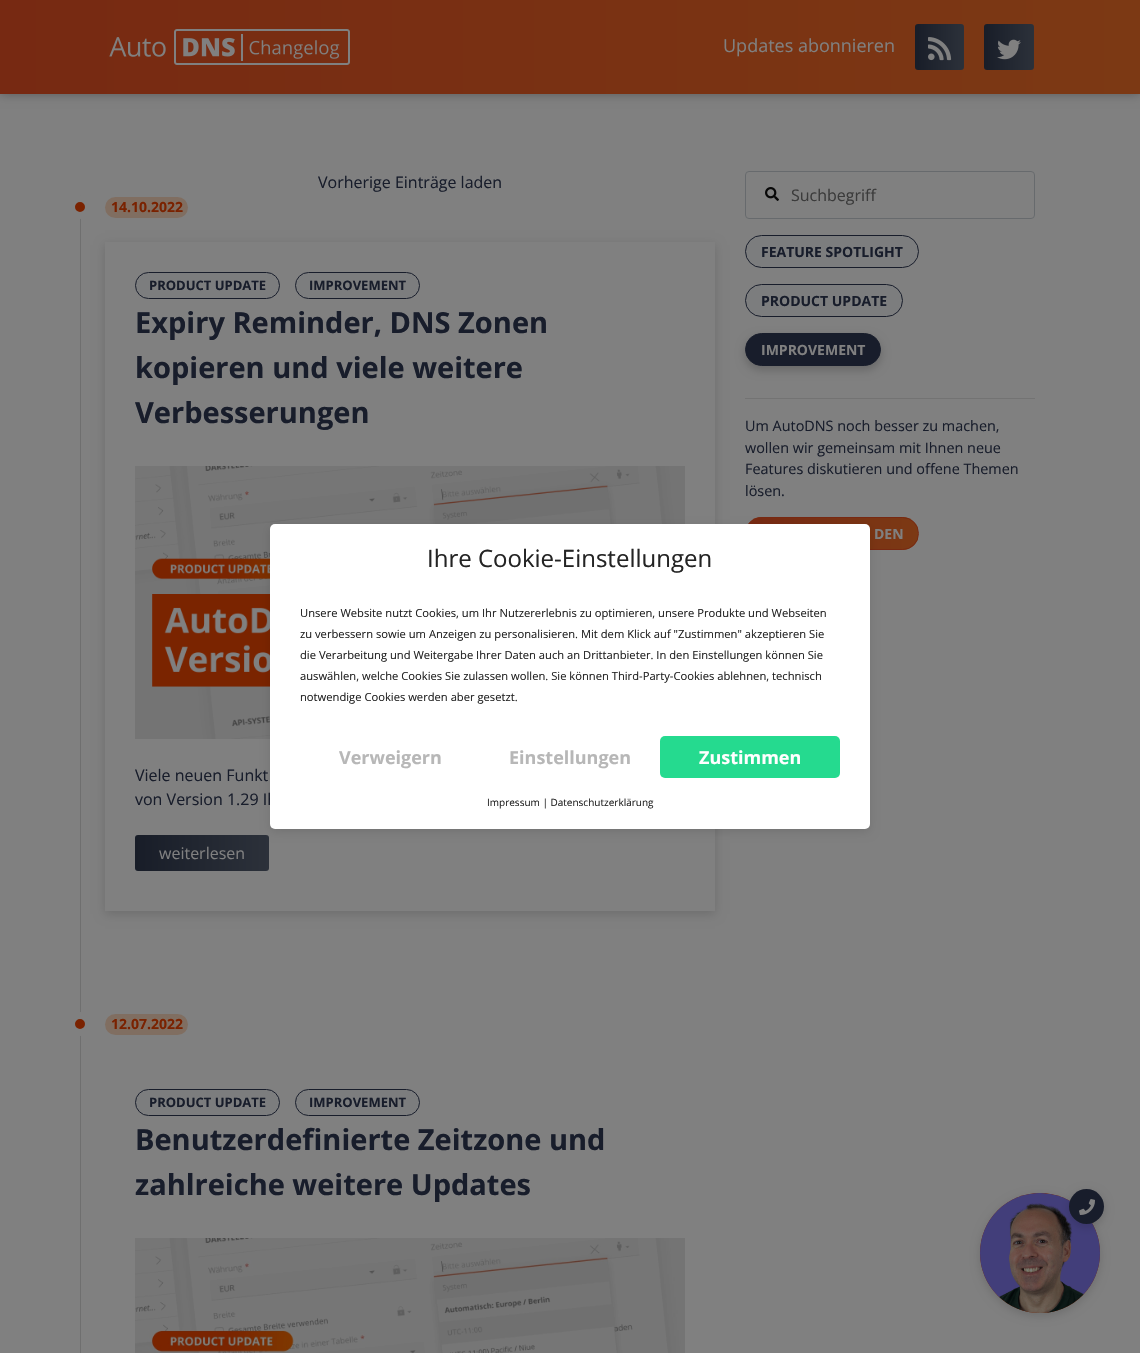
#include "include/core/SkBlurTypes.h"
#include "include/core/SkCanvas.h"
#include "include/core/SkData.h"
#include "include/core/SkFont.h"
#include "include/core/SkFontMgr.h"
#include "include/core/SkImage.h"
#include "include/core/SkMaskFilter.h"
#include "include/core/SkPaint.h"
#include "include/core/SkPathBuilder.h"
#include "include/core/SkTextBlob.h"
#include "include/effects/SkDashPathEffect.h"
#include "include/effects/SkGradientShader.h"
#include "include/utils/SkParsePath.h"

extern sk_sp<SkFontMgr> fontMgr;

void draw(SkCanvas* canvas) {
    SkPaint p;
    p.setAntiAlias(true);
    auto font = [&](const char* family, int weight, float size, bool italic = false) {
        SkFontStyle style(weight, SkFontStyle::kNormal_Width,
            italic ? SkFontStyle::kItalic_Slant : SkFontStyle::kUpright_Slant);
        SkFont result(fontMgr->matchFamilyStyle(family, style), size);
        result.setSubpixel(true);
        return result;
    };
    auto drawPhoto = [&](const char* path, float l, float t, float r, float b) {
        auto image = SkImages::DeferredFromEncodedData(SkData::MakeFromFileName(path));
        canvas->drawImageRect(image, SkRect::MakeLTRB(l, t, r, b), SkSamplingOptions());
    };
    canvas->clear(0xFF808080);
    p.setColor(0x4D000000);
    p.setMaskFilter(SkMaskFilter::MakeBlur(kNormal_SkBlurStyle, 5));
    canvas->drawRect(SkRect::MakeLTRB(0, 0, 1140, 94), p);
    p.setMaskFilter(nullptr);
    {
        const SkColor colors[] = {0xFF772912, 0xFF7C3914};
        const float stops[] = {0, 1};
        const SkPoint ends[] = {{0, 47}, {1140, 47}};
        p.setShader(SkGradientShader::MakeLinear(ends, colors, stops, 2, SkTileMode::kClamp));
        p.setAlpha(255);
    }
    canvas->drawRect(SkRect::MakeLTRB(0, 0, 1140, 94), p);
    drawPhoto("media/1.png", 109, 29, 350, 65);
    auto font1 = font("Open Sans", 400, 18);
    p.setShader(nullptr);
    p.setColor(0xFF808080);
    canvas->drawString("Updates abonnieren", 723, 52, font1, p);
    {
        const SkColor colors[] = {0xFF181D28, 0xFF2C313A};
        const float stops[] = {0, 1};
        const SkPoint ends[] = {{915, 47}, {964, 47}};
        p.setShader(SkGradientShader::MakeLinear(ends, colors, stops, 2, SkTileMode::kClamp));
        p.setAlpha(255);
    }
    canvas->drawRoundRect(SkRect::MakeLTRB(915, 24, 964, 70), 3, 3, p);
    drawPhoto("media/2.png", 928, 37, 952, 61);
    {
        const SkColor colors[] = {0xFF181D28, 0xFF2C313A};
        const float stops[] = {0, 1};
        const SkPoint ends[] = {{984, 47}, {1034, 47}};
        p.setShader(SkGradientShader::MakeLinear(ends, colors, stops, 2, SkTileMode::kClamp));
        p.setAlpha(255);
    }
    canvas->drawRoundRect(SkRect::MakeLTRB(984, 24, 1034, 70), 3, 3, p);
    drawPhoto("media/3.png", 997, 39, 1021, 60);
    p.setShader(nullptr);
    p.setColor(0xFF6F6F6F);
    canvas->drawRect(SkRect::MakeLTRB(80, 195, 81, 1353), p);
    auto font2 = font("Open Sans", 400, 16);
    p.setColor(0xFF181D2B);
    canvas->drawString("Vorherige Einträge laden", 318, 188, font2, p);
    p.setColor(0xFF806E61);
    canvas->drawRoundRect(SkRect::MakeLTRB(105, 197, 188, 218), 10.5f, 10.5f, p);
    p.setColor(0xFF7A2200);
    canvas->drawCircle(80, 207, 8.5f, p);
    p.setStyle(SkPaint::kStroke_Style);
    p.setStrokeWidth(7);
    p.setColor(0xFF808080);
    canvas->drawCircle(80, 207, 8.5f, p);
    auto font3 = font("Open Sans", 700, 14);
    p.setStyle(SkPaint::kFill_Style);
    p.setColor(0xFF7A2200);
    canvas->drawString("14.10.2022", 111, 212, font3, p);
    canvas->save();
    canvas->clipPath(SkPathBuilder(SkPathFillType::kEvenOdd).moveTo(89, 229).lineTo(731, 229).lineTo(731, 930).lineTo(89, 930).close().moveTo(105, 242).lineTo(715, 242).lineTo(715, 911).lineTo(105, 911).close().detach(), true);
    p.setColor(0x26000000);
    p.setMaskFilter(SkMaskFilter::MakeBlur(kNormal_SkBlurStyle, 5));
    canvas->drawRect(SkRect::MakeLTRB(105, 245, 715, 914), p);
    p.setMaskFilter(nullptr);
    canvas->restore();
    p.setColor(0xFF7C7D7E);
    canvas->drawRoundRect(SkRect::MakeLTRB(135.5f, 272.5f, 279.5f, 298.5f), 13, 13, p);
    p.setStyle(SkPaint::kStroke_Style);
    p.setStrokeWidth(1);
    p.setColor(0xFF181D2B);
    canvas->drawRoundRect(SkRect::MakeLTRB(135.5f, 272.5f, 279.5f, 298.5f), 13, 13, p);
    auto font4 = font("Open Sans", 700, 13);
    p.setStyle(SkPaint::kFill_Style);
    canvas->drawString("PRODUCT UPDATE", 149, 290, font4, p);
    p.setColor(0xFF7C7D7E);
    canvas->drawRoundRect(SkRect::MakeLTRB(295.5f, 272.5f, 419.5f, 298.5f), 13, 13, p);
    p.setStyle(SkPaint::kStroke_Style);
    p.setColor(0xFF181D2B);
    canvas->drawRoundRect(SkRect::MakeLTRB(295.5f, 272.5f, 419.5f, 298.5f), 13, 13, p);
    p.setStyle(SkPaint::kFill_Style);
    canvas->drawString("IMPROVEMENT", 309, 290, font4, p);
    auto font5 = font("Open Sans", 700, 29);
    {
        const struct { const char* s; float x, y; } items[] = {
            {"Expiry Reminder, DNS Zonen", 135, 333},
            {"kopieren und viele weitere", 135, 378},
            {"Verbesserungen", 135, 423},
        };
        for (auto [s, x, y] : items) {
            canvas->drawString(s, x, y, font5, p);
        }
    }
    drawPhoto("media/4.png", 135, 466, 685, 739);
    canvas->drawString("Viele neuen Funkt", 135, 781, font2, p);
    canvas->drawString("von Version 1.29 Ih", 135, 805, font2, p);
    {
        const SkColor colors[] = {0xFF181D28, 0xFF2C313A};
        const float stops[] = {0, 1};
        const SkPoint ends[] = {{135, 853}, {269, 853}};
        p.setShader(SkGradientShader::MakeLinear(ends, colors, stops, 2, SkTileMode::kClamp));
        p.setAlpha(255);
    }
    canvas->drawRoundRect(SkRect::MakeLTRB(135, 835, 269, 871), 3, 3, p);
    p.setShader(nullptr);
    p.setColor(0xFF808080);
    canvas->drawString("weiterlesen", 159, 859, font2, p);
    p.setColor(0xFF806E61);
    canvas->drawRoundRect(SkRect::MakeLTRB(105, 1014, 188, 1035), 10.5f, 10.5f, p);
    p.setColor(0xFF7A2200);
    canvas->drawCircle(80, 1024, 8.5f, p);
    p.setStyle(SkPaint::kStroke_Style);
    p.setStrokeWidth(7);
    p.setColor(0xFF808080);
    canvas->drawCircle(80, 1024, 8.5f, p);
    p.setStyle(SkPaint::kFill_Style);
    p.setColor(0xFF7A2200);
    canvas->drawString("12.07.2022", 111, 1029, font3, p);
    p.setColor(0xFF7C7D7E);
    canvas->drawRoundRect(SkRect::MakeLTRB(135.5f, 1089.5f, 279.5f, 1115.5f), 13, 13, p);
    p.setStyle(SkPaint::kStroke_Style);
    p.setStrokeWidth(1);
    p.setColor(0xFF181D2B);
    canvas->drawRoundRect(SkRect::MakeLTRB(135.5f, 1089.5f, 279.5f, 1115.5f), 13, 13, p);
    p.setStyle(SkPaint::kFill_Style);
    canvas->drawString("PRODUCT UPDATE", 149, 1107, font4, p);
    p.setColor(0xFF7C7D7E);
    canvas->drawRoundRect(SkRect::MakeLTRB(295.5f, 1089.5f, 419.5f, 1115.5f), 13, 13, p);
    p.setStyle(SkPaint::kStroke_Style);
    p.setColor(0xFF181D2B);
    canvas->drawRoundRect(SkRect::MakeLTRB(295.5f, 1089.5f, 419.5f, 1115.5f), 13, 13, p);
    p.setStyle(SkPaint::kFill_Style);
    canvas->drawString("IMPROVEMENT", 309, 1107, font4, p);
    canvas->drawString("Benutzerdefinierte Zeitzone und", 135, 1150, font5, p);
    canvas->drawString("zahlreiche weitere Updates", 135, 1195, font5, p);
    drawPhoto("media/5.png", 135, 1238, 685, 1353);
    p.setStyle(SkPaint::kStroke_Style);
    p.setColor(0xFF676A6D);
    canvas->drawRoundRect(SkRect::MakeLTRB(745.5f, 171.5f, 1034.5f, 218.5f), 3.5f, 3.5f, p);
    drawPhoto("media/6.png", 765, 187, 779, 201);
    p.setStyle(SkPaint::kFill_Style);
    p.setColor(0xFF3B3B3B);
    canvas->drawString("Suchbegriff", 791, 201, font2, p);
    p.setColor(0xFF7C7D7E);
    canvas->drawRoundRect(SkRect::MakeLTRB(745.5f, 235.5f, 918.5f, 267.5f), 16, 16, p);
    p.setStyle(SkPaint::kStroke_Style);
    p.setColor(0xFF181D2B);
    canvas->drawRoundRect(SkRect::MakeLTRB(745.5f, 235.5f, 918.5f, 267.5f), 16, 16, p);
    p.setStyle(SkPaint::kFill_Style);
    canvas->drawString("FEATURE SPOTLIGHT", 761, 257, font3, p);
    p.setColor(0xFF7C7D7E);
    canvas->drawRoundRect(SkRect::MakeLTRB(745.5f, 284.5f, 902.5f, 316.5f), 16, 16, p);
    p.setStyle(SkPaint::kStroke_Style);
    p.setColor(0xFF181D2B);
    canvas->drawRoundRect(SkRect::MakeLTRB(745.5f, 284.5f, 902.5f, 316.5f), 16, 16, p);
    p.setStyle(SkPaint::kFill_Style);
    canvas->drawString("PRODUCT UPDATE", 761, 306, font3, p);
    p.setColor(0x33000000);
    p.setMaskFilter(SkMaskFilter::MakeBlur(kNormal_SkBlurStyle, 5));
    canvas->drawRoundRect(SkRect::MakeLTRB(745, 337, 881, 370), 16.5f, 16.5f, p);
    p.setMaskFilter(nullptr);
    p.setColor(0xFF181D2B);
    canvas->drawRoundRect(SkRect::MakeLTRB(745.5f, 333.5f, 880.5f, 365.5f), 16, 16, p);
    p.setStyle(SkPaint::kStroke_Style);
    canvas->drawRoundRect(SkRect::MakeLTRB(745.5f, 333.5f, 880.5f, 365.5f), 16, 16, p);
    p.setStyle(SkPaint::kFill_Style);
    p.setColor(0xFF808080);
    canvas->drawString("IMPROVEMENT", 761, 355, font3, p);
    p.setColor(0xFF737373);
    canvas->drawRect(SkRect::MakeLTRB(745, 398, 1035, 399), p);
    auto font6 = font("Open Sans", 400, 14.4f);
    p.setColor(0xFF181D2B);
    {
        const struct { const char* s; float x, y; } items[] = {
            {"Um AutoDNS noch besser zu machen,", 745, 431},
            {"wollen wir gemeinsam mit Ihnen neue", 745, 453},
            {"Features diskutieren und offene Themen", 745, 474},
            {"lösen.", 745, 496},
        };
        for (auto [s, x, y] : items) {
            canvas->drawString(s, x, y, font6, p);
        }
    }
    canvas->save();
    canvas->clipPath(SkPathBuilder().moveTo(761.5f, 517).lineTo(902.5f, 517).cubicTo(911.5f, 517, 919, 524.5f, 919, 533.5f).cubicTo(919, 542.5f, 911.5f, 550, 902.5f, 550).lineTo(761.5f, 550).cubicTo(752.5f, 550, 745, 542.5f, 745, 533.5f).cubicTo(745, 524.5f, 752.5f, 517, 761.5f, 517).close().detach(), true);
    {
        const SkColor colors[] = {0xFF772912, 0xFF7C3914};
        const float stops[] = {0, 1};
        const SkPoint ends[] = {{746, 534}, {918, 534}};
        p.setShader(SkGradientShader::MakeLinear(ends, colors, stops, 2, SkTileMode::kClamp));
        p.setAlpha(255);
    }
    canvas->drawRect(SkRect::MakeLTRB(748, 517, 918, 550), p);
    canvas->restore();
    p.setStyle(SkPaint::kStroke_Style);
    p.setShader(nullptr);
    p.setColor(0xFF772912);
    canvas->drawRoundRect(SkRect::MakeLTRB(745.5f, 517.5f, 918.5f, 549.5f), 16, 16, p);
    p.setStyle(SkPaint::kFill_Style);
    p.setColor(0xFF808080);
    canvas->drawString("DEN", 874, 539, font3, p);
    p.setColor(0x1A000000);
    p.setMaskFilter(SkMaskFilter::MakeBlur(kNormal_SkBlurStyle, 5));
    canvas->drawRoundRect(SkRect::MakeLTRB(270, 527, 870, 832), 5, 5, p);
    p.setMaskFilter(nullptr);
    p.setColor(0xFFFFFFFF);
    canvas->drawRoundRect(SkRect::MakeLTRB(270, 524, 870, 829), 5, 5, p);
    auto font7 = font("Open Sans", 400, 24);
    p.setColor(0xFF242424);
    canvas->drawString("Ihre Cookie-Einstellungen", 427, 567, font7, p);
    auto font8 = font("Open Sans", 400, 11.2f);
    {
        const struct { const char* s; float x, y; } items[] = {
            {"Unsere Website nutzt Cookies, um Ihr Nutzererlebnis zu optimieren, unsere Produkte und Webseiten", 300, 617},
            {"zu verbessern sowie um Anzeigen zu personalisieren. Mit dem Klick auf \"Zustimmen\" akzeptieren Sie", 300, 638},
            {"die Verarbeitung und Weitergabe Ihrer Daten auch an Drittanbieter. In den Einstellungen können Sie", 300, 659},
            {"auswählen, welche Cookies Sie zulassen wollen. Sie können Third-Party-Cookies ablehnen, technisch", 300, 680},
            {"notwendige Cookies werden aber gesetzt.", 300, 701},
        };
        for (auto [s, x, y] : items) {
            canvas->drawString(s, x, y, font8, p);
        }
    }
    auto font9 = font("Open Sans", 700, 18);
    p.setColor(0xFFB7B7B7);
    canvas->drawString("Verweigern", 339, 764, font9, p);
    canvas->drawString("Einstellungen", 509, 764, font9, p);
    p.setColor(0xFF25DA8F);
    canvas->drawRoundRect(SkRect::MakeLTRB(660, 736, 840, 778), 5, 5, p);
    p.setColor(0xFFFFFFFF);
    canvas->drawString("Zustimmen", 699, 764, font9, p);
    auto font10 = font("Open Sans", 400, 10);
    p.setColor(0xFF242424);
    canvas->drawString("Impressum | Datenschutzerklärung", 487, 806, font10, p);
    p.setColor(0x26000000);
    p.setMaskFilter(SkMaskFilter::MakeBlur(kNormal_SkBlurStyle, 5));
    canvas->drawRoundRect(SkRect::MakeLTRB(980, 1196, 1100, 1316), 60, 60, p);
    p.setMaskFilter(nullptr);
    p.setColor(0xFF7A2200);
    canvas->drawCircle(1040, 1253, 60, p);
    drawPhoto("media/7.png", 980, 1193, 1100, 1313);
    p.setColor(0x26000000);
    p.setMaskFilter(SkMaskFilter::MakeBlur(kNormal_SkBlurStyle, 5));
    canvas->drawRoundRect(SkRect::MakeLTRB(1069, 1192, 1104, 1227), 17.5f, 17.5f, p);
    p.setMaskFilter(nullptr);
    p.setColor(0xFF181D2B);
    canvas->drawCircle(1086.5f, 1206.5f, 17.5f, p);
    drawPhoto("media/8.png", 1079, 1199, 1095, 1215);
}
